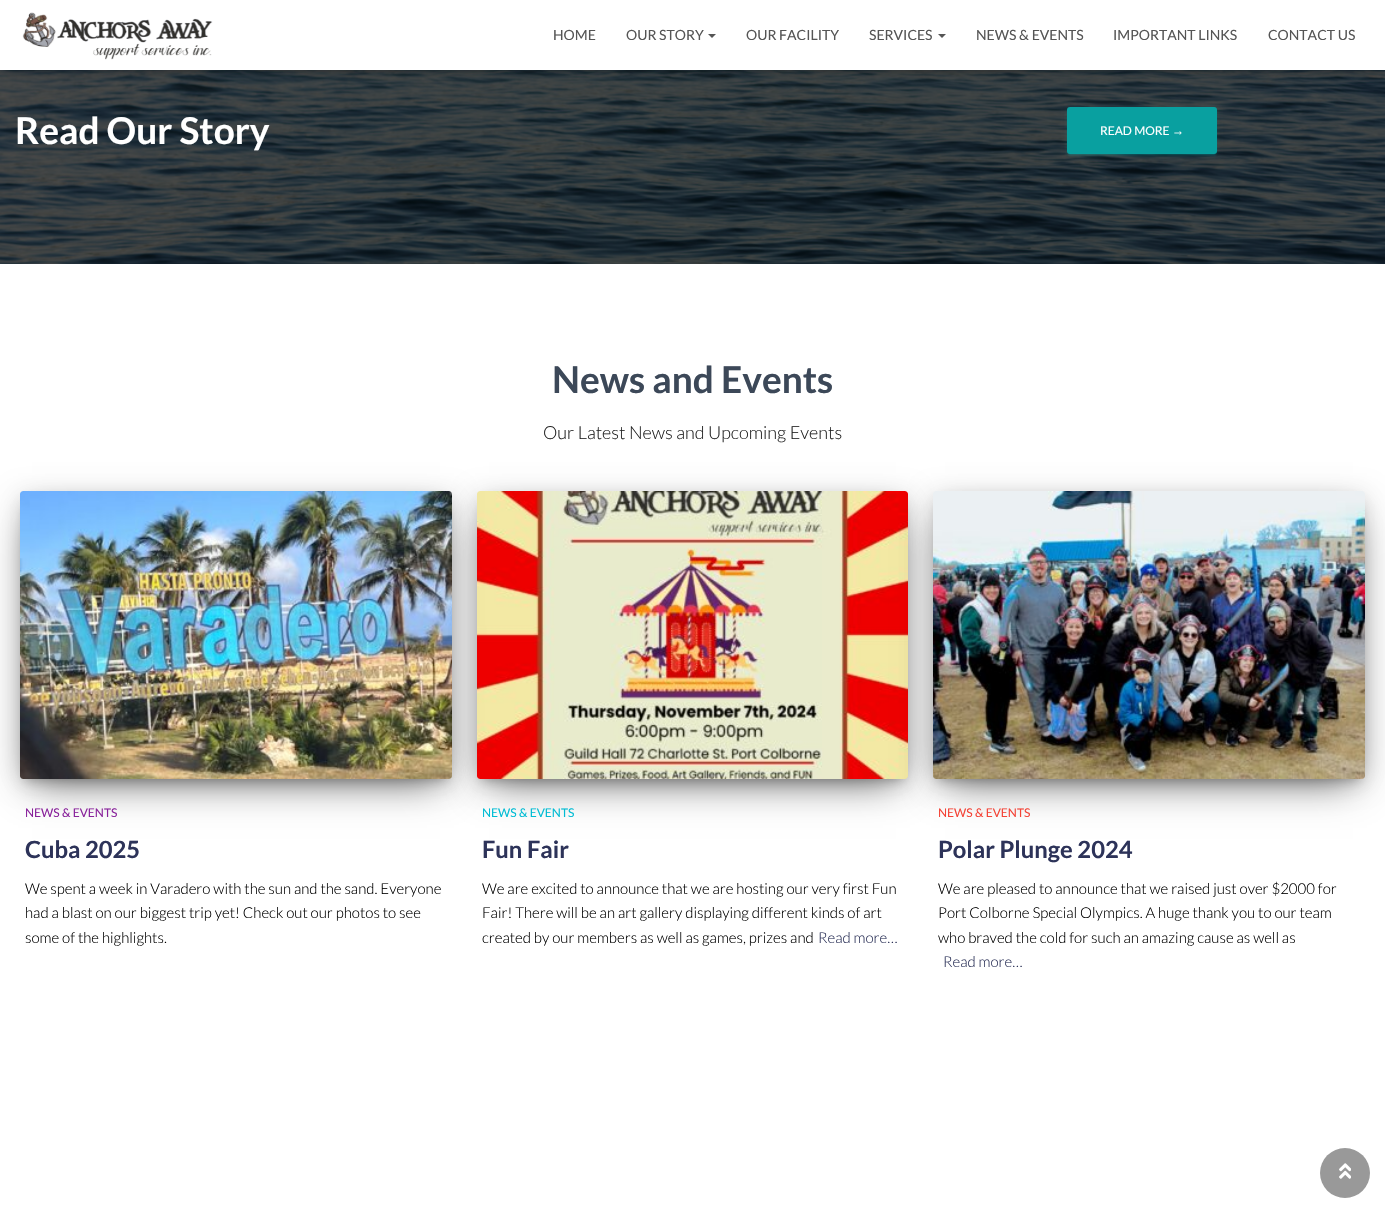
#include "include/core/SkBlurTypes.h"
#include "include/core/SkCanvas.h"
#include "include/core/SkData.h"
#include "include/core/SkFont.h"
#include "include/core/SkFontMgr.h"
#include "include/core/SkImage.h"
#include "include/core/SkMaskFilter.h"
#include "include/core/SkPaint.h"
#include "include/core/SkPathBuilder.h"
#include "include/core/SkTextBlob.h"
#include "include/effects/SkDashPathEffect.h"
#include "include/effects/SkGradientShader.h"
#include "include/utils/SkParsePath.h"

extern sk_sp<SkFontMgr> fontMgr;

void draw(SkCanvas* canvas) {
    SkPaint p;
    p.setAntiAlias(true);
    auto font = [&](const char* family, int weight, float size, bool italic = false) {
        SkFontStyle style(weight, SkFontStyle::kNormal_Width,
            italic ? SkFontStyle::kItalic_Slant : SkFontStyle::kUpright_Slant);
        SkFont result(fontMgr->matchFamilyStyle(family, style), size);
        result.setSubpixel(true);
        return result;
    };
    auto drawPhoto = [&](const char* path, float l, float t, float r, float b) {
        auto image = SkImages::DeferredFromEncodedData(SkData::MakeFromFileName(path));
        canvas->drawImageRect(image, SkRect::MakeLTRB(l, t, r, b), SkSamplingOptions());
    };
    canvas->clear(0xFFFFFFFF);
    drawPhoto("media/2.png", 0, 70, 1385, 264);
    p.setColor(0x1A000000);
    p.setMaskFilter(SkMaskFilter::MakeBlur(kNormal_SkBlurStyle, 2.5f));
    canvas->drawRect(SkRect::MakeLTRB(2, 6, 1383, 72), p);
    p.setMaskFilter(nullptr);
    p.setColor(0x1F000000);
    p.setMaskFilter(SkMaskFilter::MakeBlur(kNormal_SkBlurStyle, 5));
    canvas->drawRect(SkRect::MakeLTRB(0, 1, 1385, 71), p);
    p.setMaskFilter(nullptr);
    p.setColor(0x6B000000);
    p.setMaskFilter(SkMaskFilter::MakeBlur(kNormal_SkBlurStyle, 5));
    canvas->drawRect(SkRect::MakeLTRB(6, 7, 1379, 65), p);
    p.setMaskFilter(nullptr);
    p.setColor(0xFFFFFFFF);
    canvas->drawRect(SkRect::MakeLTRB(0, 0, 1385, 70), p);
    drawPhoto("media/1.png", 22, 12, 213, 60);
    auto font1 = font("Lato", 400, 14);
    p.setColor(0xFF555555);
    canvas->drawString("HOME", 553, 40, font1, p);
    canvas->drawString("OUR STORY", 626, 40, font1, p);
    canvas->drawPath(SkPathBuilder().moveTo(708, 34).lineTo(716, 34).lineTo(712, 38).close().detach(), p);
    canvas->drawString("OUR FACILITY", 746, 40, font1, p);
    canvas->drawString("SERVICES", 869, 40, font1, p);
    canvas->drawPath(SkPathBuilder().moveTo(938, 34).lineTo(946, 34).lineTo(942, 38).close().detach(), p);
    {
        const struct { const char* s; float x, y; } items[] = {
            {"NEWS & EVENTS", 976, 40},
            {"IMPORTANT LINKS", 1113, 40},
            {"CONTACT US", 1268, 40},
        };
        for (auto [s, x, y] : items) {
            canvas->drawString(s, x, y, font1, p);
        }
    }
    auto font2 = font("Lato", 700, 37);
    p.setColor(0xFFFFFFFF);
    canvas->drawString("Read Our Story", 15, 144, font2, p);
    p.setColor(0x1F09A0A0);
    p.setMaskFilter(SkMaskFilter::MakeBlur(kNormal_SkBlurStyle, 2.5f));
    canvas->drawRoundRect(SkRect::MakeLTRB(1067, 108, 1217, 155), 3, 3, p);
    p.setMaskFilter(nullptr);
    p.setColor(0x3309A0A0);
    p.setMaskFilter(SkMaskFilter::MakeBlur(kNormal_SkBlurStyle, 0.5f));
    canvas->drawRoundRect(SkRect::MakeLTRB(1069, 112, 1215, 155), 1, 1, p);
    p.setMaskFilter(nullptr);
    p.setColor(0x2409A0A0);
    p.setMaskFilter(SkMaskFilter::MakeBlur(kNormal_SkBlurStyle, 1));
    canvas->drawRoundRect(SkRect::MakeLTRB(1067, 109, 1217, 156), 3, 3, p);
    p.setMaskFilter(nullptr);
    p.setColor(0xFF09A0A0);
    canvas->drawRoundRect(SkRect::MakeLTRB(1067, 107, 1217, 154), 3, 3, p);
    auto font3 = font("Lato", 400, 12);
    p.setColor(0xFFFFFFFF);
    canvas->drawString("READ MORE", 1100, 135, font3, p);
    auto font4 = font("Liberation Serif", 400, 12);
    canvas->drawString("→", 1172, 135, font4, p);
    p.setColor(0xFF3C4858);
    canvas->drawString("News and Events", 552, 393, font2, p);
    auto font5 = font("Lato", 300, 18);
    p.setColor(0xFF232323);
    canvas->drawString("Our Latest News and Upcoming Events", 543, 439, font5, p);
    p.setColor(0x33000000);
    p.setMaskFilter(SkMaskFilter::MakeBlur(kNormal_SkBlurStyle, 5));
    canvas->drawRect(SkRect::MakeLTRB(25, 504, 447, 781), p);
    p.setMaskFilter(nullptr);
    p.setColor(0x1F000000);
    p.setMaskFilter(SkMaskFilter::MakeBlur(kNormal_SkBlurStyle, 12.5f));
    canvas->drawRoundRect(SkRect::MakeLTRB(20, 495, 452, 782), 3, 3, p);
    p.setMaskFilter(nullptr);
    p.setColor(0x8F000000);
    p.setMaskFilter(SkMaskFilter::MakeBlur(kNormal_SkBlurStyle, 19));
    canvas->drawRect(SkRect::MakeLTRB(32, 519, 440, 782), p);
    p.setMaskFilter(nullptr);
    drawPhoto("media/3.png", 20, 491, 452, 779);
    p.setColor(0xFF89229B);
    canvas->drawString("NEWS & EVENTS", 25, 817, font3, p);
    auto font6 = font("Lato", 700, 23.75f);
    p.setColor(0xFF2D3359);
    canvas->drawString("Cuba 2025", 25, 858, font6, p);
    auto font7 = font("Lato", 300, 15);
    p.setColor(0xFF000000);
    {
        const struct { const char* s; float x, y; } items[] = {
            {"We spent a week in Varadero with the sun and the sand. Everyone", 25, 894},
            {"had a blast on our biggest trip yet! Check out our photos to see", 25, 918},
            {"some of the highlights.", 25, 943},
        };
        for (auto [s, x, y] : items) {
            canvas->drawString(s, x, y, font7, p);
        }
    }
    p.setColor(0x33000000);
    p.setMaskFilter(SkMaskFilter::MakeBlur(kNormal_SkBlurStyle, 5));
    canvas->drawRect(SkRect::MakeLTRB(482, 504, 903, 781), p);
    p.setMaskFilter(nullptr);
    p.setColor(0x1F000000);
    p.setMaskFilter(SkMaskFilter::MakeBlur(kNormal_SkBlurStyle, 12.5f));
    canvas->drawRoundRect(SkRect::MakeLTRB(477, 495, 908, 782), 3, 3, p);
    p.setMaskFilter(nullptr);
    p.setColor(0x8F000000);
    p.setMaskFilter(SkMaskFilter::MakeBlur(kNormal_SkBlurStyle, 19));
    canvas->drawRect(SkRect::MakeLTRB(489, 519, 896, 782), p);
    p.setMaskFilter(nullptr);
    drawPhoto("media/4.png", 477, 491, 908, 779);
    p.setColor(0xFF00BCD4);
    canvas->drawString("NEWS & EVENTS", 482, 817, font3, p);
    p.setColor(0xFF2D3359);
    canvas->drawString("Fun Fair", 482, 858, font6, p);
    p.setColor(0xFF000000);
    {
        const struct { const char* s; float x, y; } items[] = {
            {"We are excited to announce that we are hosting our very first Fun", 482, 894},
            {"Fair! There will be an art gallery displaying different kinds of art", 482, 918},
            {"created by our members as well as games, prizes and", 482, 943},
        };
        for (auto [s, x, y] : items) {
            canvas->drawString(s, x, y, font7, p);
        }
    }
    p.setColor(0xFF2D3359);
    canvas->drawString("Read more…", 818, 943, font7, p);
    p.setColor(0x33000000);
    p.setMaskFilter(SkMaskFilter::MakeBlur(kNormal_SkBlurStyle, 5));
    canvas->drawRect(SkRect::MakeLTRB(938, 504, 1360, 781), p);
    p.setMaskFilter(nullptr);
    p.setColor(0x1F000000);
    p.setMaskFilter(SkMaskFilter::MakeBlur(kNormal_SkBlurStyle, 12.5f));
    canvas->drawRoundRect(SkRect::MakeLTRB(933, 495, 1365, 782), 3, 3, p);
    p.setMaskFilter(nullptr);
    p.setColor(0x8F000000);
    p.setMaskFilter(SkMaskFilter::MakeBlur(kNormal_SkBlurStyle, 19));
    canvas->drawRect(SkRect::MakeLTRB(945, 519, 1353, 782), p);
    p.setMaskFilter(nullptr);
    drawPhoto("media/5.png", 933, 491, 1365, 779);
    p.setColor(0xFFF44336);
    canvas->drawString("NEWS & EVENTS", 938, 817, font3, p);
    p.setColor(0xFF2D3359);
    canvas->drawString("Polar Plunge 2024", 938, 858, font6, p);
    p.setColor(0xFF000000);
    {
        const struct { const char* s; float x, y; } items[] = {
            {"We are pleased to announce that we raised just over $2000 for", 938, 894},
            {"Port Colborne Special Olympics. A huge thank you to our team", 938, 918},
            {"who braved the cold for such an amazing cause as well as", 938, 943},
        };
        for (auto [s, x, y] : items) {
            canvas->drawString(s, x, y, font7, p);
        }
    }
    p.setColor(0xFF2D3359);
    canvas->drawString("Read more…", 943, 967, font7, p);
    p.setColor(0xFF999999);
    canvas->drawCircle(1345, 1173, 25, p);
    drawPhoto("media/6.png", 1339, 1163, 1351, 1179);
}
